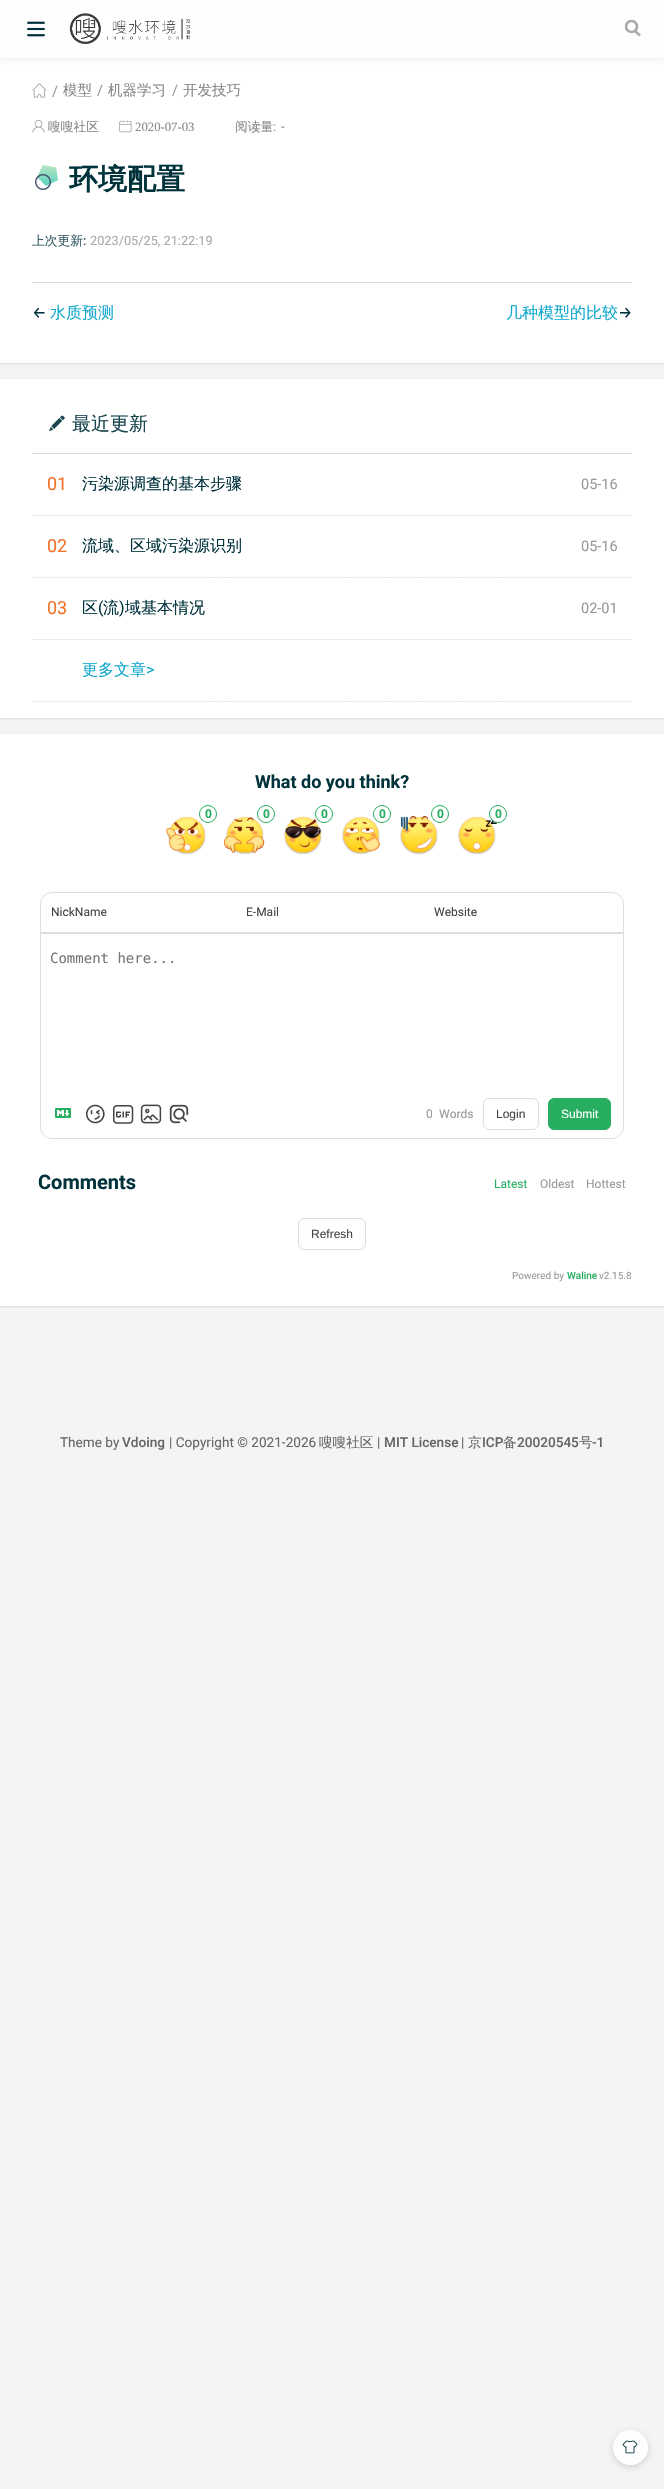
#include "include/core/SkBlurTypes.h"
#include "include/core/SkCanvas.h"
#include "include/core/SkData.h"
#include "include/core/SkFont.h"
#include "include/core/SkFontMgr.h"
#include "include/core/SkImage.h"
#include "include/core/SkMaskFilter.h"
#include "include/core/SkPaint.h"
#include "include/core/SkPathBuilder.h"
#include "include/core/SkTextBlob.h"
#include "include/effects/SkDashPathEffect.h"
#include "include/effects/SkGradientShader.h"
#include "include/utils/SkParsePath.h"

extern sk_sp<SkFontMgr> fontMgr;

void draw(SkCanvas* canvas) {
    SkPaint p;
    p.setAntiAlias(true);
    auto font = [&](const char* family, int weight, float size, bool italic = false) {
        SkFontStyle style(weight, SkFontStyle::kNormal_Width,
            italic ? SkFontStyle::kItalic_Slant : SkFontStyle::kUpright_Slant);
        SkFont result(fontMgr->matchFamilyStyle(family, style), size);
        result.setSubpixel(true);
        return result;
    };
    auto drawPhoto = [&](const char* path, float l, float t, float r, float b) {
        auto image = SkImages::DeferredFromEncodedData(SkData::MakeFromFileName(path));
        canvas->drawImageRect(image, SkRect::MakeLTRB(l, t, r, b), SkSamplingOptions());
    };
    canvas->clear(0xFFF4F4F4);
    p.setColor(0x1A000000);
    p.setMaskFilter(SkMaskFilter::MakeBlur(kNormal_SkBlurStyle, 1));
    canvas->drawRect(SkRect::MakeLTRB(0, 59, 664, 364), p);
    p.setMaskFilter(nullptr);
    p.setColor(0xFFFFFFFF);
    canvas->drawRect(SkRect::MakeLTRB(0, 58, 664, 363), p);
    p.setColor(0x0F000000);
    p.setMaskFilter(SkMaskFilter::MakeBlur(kNormal_SkBlurStyle, 2.5f));
    canvas->drawRect(SkRect::MakeLTRB(0, 2, 664, 60), p);
    p.setMaskFilter(nullptr);
    p.setColor(0xFFFEFEFE);
    canvas->drawRect(SkRect::MakeLTRB(0, 0, 664, 58), p);
    drawPhoto("media/1.png", 27, 21, 45, 37);
    drawPhoto("media/2.png", 69, 13, 191, 44);
    p.setStyle(SkPaint::kStroke_Style);
    p.setStrokeWidth(2.7f);
    p.setColor(0xFFAAAAAA);
    canvas->drawPath(SkPathBuilder().moveTo(640, 35.5f).lineTo(634.5f, 30.5f).detach(), p);
    canvas->save();
    canvas->clipRect(SkRect::MakeLTRB(625, 20, 641, 38));
    canvas->drawCircle(631.5f, 26.5f, 5.5f, p);
    canvas->restore();
    drawPhoto("media/3.png", 32, 83, 47, 98);
    auto font1 = font("Roboto", 400, 14.5f);
    p.setStyle(SkPaint::kFill_Style);
    p.setColor(0xFF999999);
    canvas->drawString("/", 52, 96, font1, p);
    auto font2 = font("WenQuanYi Zen Hei", 500, 14.5f);
    p.setColor(0xFF888888);
    canvas->drawString("模型", 63, 95, font2, p);
    p.setColor(0xFF999999);
    canvas->drawString("/", 97, 95, font1, p);
    p.setColor(0xFF888888);
    canvas->drawString("机器学习", 108, 95, font2, p);
    p.setColor(0xFF999999);
    canvas->drawString("/", 172, 95, font1, p);
    p.setColor(0xFF888888);
    canvas->drawString("开发技巧", 183, 95, font2, p);
    drawPhoto("media/4.png", 32, 120, 45, 133);
    auto font3 = font("WenQuanYi Zen Hei", 500, 12.75f);
    canvas->drawString("嗖嗖社区", 48, 131, font3, p);
    drawPhoto("media/5.png", 119, 120, 132, 133);
    auto font4 = font("Liberation Serif", 400, 12.75f);
    canvas->drawString("2020-07-03", 135, 131, font4, p);
    canvas->drawString("阅读量", 235, 131, font3, p);
    auto font5 = font("Roboto", 400, 12.75f);
    canvas->drawString(":", 273, 131, font5, p);
    canvas->drawString("-", 281, 131, font5, p);
    drawPhoto("media/6.png", 35, 165, 58, 190);
    auto font6 = font("WenQuanYi Zen Hei", 700, 29);
    p.setColor(0xFF00323C);
    canvas->drawString("环境配置", 69, 189, font6, p);
    p.setColor(0xFF335B63);
    canvas->drawString("上次更新", 32, 245, font3, p);
    auto font7 = font("Roboto", 500, 12.75f);
    canvas->drawString(":", 83, 245, font7, p);
    p.setColor(0xFFAAAAAA);
    canvas->drawString("2023/05/25, 21:22:19", 90, 245, font5, p);
    p.setColor(0xFFD9D9D9);
    canvas->drawRect(SkRect::MakeLTRB(32, 282, 632, 283), p);
    auto font8 = font("Fira Sans", 400, 16);
    p.setColor(0xFF00323C);
    canvas->drawString("←", 32, 318, font8, p);
    auto font9 = font("WenQuanYi Zen Hei", 500, 16);
    p.setColor(0xFF11A8CD);
    canvas->drawString("水质预测", 50, 318, font9, p);
    canvas->drawString("几种模型的比较", 506, 318, font9, p);
    p.setColor(0xFF00323C);
    canvas->drawString("→", 618, 318, font8, p);
    p.setColor(0x1A000000);
    p.setMaskFilter(SkMaskFilter::MakeBlur(kNormal_SkBlurStyle, 1));
    canvas->drawRect(SkRect::MakeLTRB(0, 380, 664, 719), p);
    p.setMaskFilter(nullptr);
    p.setColor(0xFFFFFFFF);
    canvas->drawRect(SkRect::MakeLTRB(0, 379, 664, 718), p);
    p.setColor(0xFFD9D9D9);
    canvas->drawRect(SkRect::MakeLTRB(32, 453, 632, 454), p);
    drawPhoto("media/7.png", 49, 415, 65, 432);
    auto font10 = font("WenQuanYi Zen Hei", 500, 19);
    p.setColor(0xFF1A4750);
    canvas->drawString("最近更新", 72, 430, font10, p);
    p.setStyle(SkPaint::kStroke_Style);
    p.setStrokeWidth(1);
    p.setColor(0xFFD9D9D9);
    p.setPathEffect(SkDashPathEffect::Make({{1, 1}}, 0));
    canvas->drawPath(SkPathBuilder().moveTo(32, 515.5f).lineTo(632, 515.5f).detach(), p);
    p.setPathEffect(nullptr);
    auto font11 = font("Roboto", 400, 18);
    p.setStyle(SkPaint::kFill_Style);
    p.setColor(0xFFF17229);
    canvas->drawString("01", 47, 490, font11, p);
    p.setColor(0xFF00323C);
    canvas->drawString("污染源调查的基本步骤", 82, 489, font9, p);
    p.setColor(0xFF999999);
    canvas->drawString("05-16", 581, 489, font1, p);
    p.setStyle(SkPaint::kStroke_Style);
    p.setColor(0xFFD9D9D9);
    p.setPathEffect(SkDashPathEffect::Make({{1, 1}}, 0));
    canvas->drawPath(SkPathBuilder().moveTo(32, 577.5f).lineTo(632, 577.5f).detach(), p);
    p.setPathEffect(nullptr);
    p.setStyle(SkPaint::kFill_Style);
    p.setColor(0xFFF17229);
    canvas->drawString("02", 47, 552, font11, p);
    p.setColor(0xFF00323C);
    canvas->drawString("流域、区域污染源识别", 82, 551, font9, p);
    p.setColor(0xFF999999);
    canvas->drawString("05-16", 581, 551, font1, p);
    p.setStyle(SkPaint::kStroke_Style);
    p.setColor(0xFFD9D9D9);
    p.setPathEffect(SkDashPathEffect::Make({{1, 1}}, 0));
    canvas->drawPath(SkPathBuilder().moveTo(32, 639.5f).lineTo(632, 639.5f).detach(), p);
    p.setPathEffect(nullptr);
    p.setStyle(SkPaint::kFill_Style);
    p.setColor(0xFFF17229);
    canvas->drawString("03", 47, 614, font11, p);
    p.setColor(0xFF00323C);
    canvas->drawString("区", 82, 613, font9, p);
    auto font12 = font("Roboto", 400, 16);
    canvas->drawString("(", 98, 613, font12, p);
    canvas->drawString("流", 103, 613, font9, p);
    canvas->drawString(")", 119, 613, font12, p);
    canvas->drawString("域基本情况", 125, 613, font9, p);
    p.setColor(0xFF999999);
    canvas->drawString("02-01", 581, 613, font1, p);
    p.setStyle(SkPaint::kStroke_Style);
    p.setColor(0xFFD9D9D9);
    p.setPathEffect(SkDashPathEffect::Make({{1, 1}}, 0));
    canvas->drawPath(SkPathBuilder().moveTo(32, 701.5f).lineTo(632, 701.5f).detach(), p);
    p.setPathEffect(nullptr);
    p.setStyle(SkPaint::kFill_Style);
    p.setColor(0xFF11A8CD);
    canvas->drawString("更多文章", 82, 675, font9, p);
    canvas->drawString(">", 146, 675, font12, p);
    p.setColor(0x1A000000);
    p.setMaskFilter(SkMaskFilter::MakeBlur(kNormal_SkBlurStyle, 1));
    canvas->drawRect(SkRect::MakeLTRB(0, 735, 664, 1307), p);
    p.setMaskFilter(nullptr);
    p.setColor(0xFFFFFFFF);
    canvas->drawRect(SkRect::MakeLTRB(0, 734, 664, 1306), p);
    auto font13 = font("Roboto", 700, 18);
    p.setColor(0xFF00323C);
    canvas->drawString("What do you think?", 255, 788, font13, p);
    drawPhoto("media/8.png", 166, 816, 206, 855);
    p.setStyle(SkPaint::kStroke_Style);
    p.setColor(0xFF27AE60);
    canvas->drawCircle(208, 814, 8.5f, p);
    auto font14 = font("Roboto", 700, 12);
    p.setStyle(SkPaint::kFill_Style);
    canvas->drawString("0", 205, 818, font14, p);
    drawPhoto("media/9.png", 224, 816, 265, 855);
    p.setStyle(SkPaint::kStroke_Style);
    canvas->drawCircle(266, 814, 8.5f, p);
    p.setStyle(SkPaint::kFill_Style);
    canvas->drawString("0", 263, 818, font14, p);
    drawPhoto("media/10.png", 284, 816, 322, 855);
    p.setStyle(SkPaint::kStroke_Style);
    canvas->drawCircle(324, 814, 8.5f, p);
    p.setStyle(SkPaint::kFill_Style);
    canvas->drawString("0", 321, 818, font14, p);
    drawPhoto("media/11.png", 342, 816, 380, 855);
    p.setStyle(SkPaint::kStroke_Style);
    canvas->drawCircle(382, 814, 8.5f, p);
    p.setStyle(SkPaint::kFill_Style);
    canvas->drawString("0", 379, 818, font14, p);
    drawPhoto("media/12.png", 400, 816, 438, 855);
    p.setStyle(SkPaint::kStroke_Style);
    canvas->drawCircle(440, 814, 8.5f, p);
    p.setStyle(SkPaint::kFill_Style);
    canvas->drawString("0", 437, 818, font14, p);
    drawPhoto("media/13.png", 458, 816, 497, 855);
    p.setColor(0xFFFFFFFF);
    canvas->drawCircle(498, 814, 8.5f, p);
    p.setStyle(SkPaint::kStroke_Style);
    p.setColor(0xFF27AE60);
    canvas->drawCircle(498, 814, 8.5f, p);
    p.setStyle(SkPaint::kFill_Style);
    canvas->drawString("0", 495, 818, font14, p);
    p.setStyle(SkPaint::kStroke_Style);
    p.setColor(0xFFDDDDDD);
    canvas->drawRoundRect(SkRect::MakeLTRB(40.5f, 892.5f, 623.5f, 1138.5f), 11.5f, 11.5f, p);
    p.setStyle(SkPaint::kFill_Style);
    canvas->drawRect(SkRect::MakeLTRB(41, 932, 623, 934), p);
    auto font15 = font("Roboto", 400, 12);
    p.setColor(0xFF444444);
    {
        const struct { const char* s; float x, y; } items[] = {
            {"NickName", 51, 916},
            {"E-Mail", 246, 916},
            {"Website", 434, 916},
        };
        for (auto [s, x, y] : items) {
            canvas->drawString(s, x, y, font15, p);
        }
    }
    auto font16 = font("DejaVu Sans Mono", 400, 14);
    p.setColor(0xFF757575);
    canvas->drawString("Comment here...", 50, 963, font16, p);
    drawPhoto("media/14.png", 55, 1108, 71, 1118);
    drawPhoto("media/15.png", 86, 1104, 105, 1124);
    drawPhoto("media/16.png", 113, 1105, 134, 1124);
    drawPhoto("media/17.png", 140, 1104, 162, 1124);
    drawPhoto("media/18.png", 169, 1104, 189, 1124);
    p.setColor(0xFF999999);
    canvas->drawString("0", 426, 1118, font15, p);
    canvas->drawString("Words", 439, 1118, font15, p);
    p.setStyle(SkPaint::kStroke_Style);
    p.setColor(0xFFDDDDDD);
    canvas->drawRoundRect(SkRect::MakeLTRB(483.5f, 1098.5f, 538.5f, 1129.5f), 5.5f, 5.5f, p);
    auto font17 = font("Liberation Sans", 400, 12);
    p.setStyle(SkPaint::kFill_Style);
    p.setColor(0xFF444444);
    canvas->drawString("Login", 496, 1118, font17, p);
    p.setColor(0xFF27AE60);
    canvas->drawRoundRect(SkRect::MakeLTRB(548.5f, 1098.5f, 610.5f, 1129.5f), 5.5f, 5.5f, p);
    p.setStyle(SkPaint::kStroke_Style);
    canvas->drawRoundRect(SkRect::MakeLTRB(548.5f, 1098.5f, 610.5f, 1129.5f), 5.5f, 5.5f, p);
    p.setStyle(SkPaint::kFill_Style);
    p.setColor(0xFFFFFFFF);
    canvas->drawString("Submit", 561, 1118, font17, p);
    auto font18 = font("Roboto", 700, 20);
    p.setColor(0xFF00323C);
    canvas->drawString("Comments", 38, 1189, font18, p);
    p.setColor(0xFF27AE60);
    canvas->drawString("Latest", 494, 1188, font15, p);
    p.setColor(0xFF999999);
    canvas->drawString("Oldest", 540, 1188, font15, p);
    canvas->drawString("Hottest", 586, 1188, font15, p);
    p.setStyle(SkPaint::kStroke_Style);
    p.setColor(0xFFDDDDDD);
    canvas->drawRoundRect(SkRect::MakeLTRB(298.5f, 1218.5f, 365.5f, 1249.5f), 5.5f, 5.5f, p);
    p.setStyle(SkPaint::kFill_Style);
    p.setColor(0xFF444444);
    canvas->drawString("Refresh", 311, 1238, font17, p);
    auto font19 = font("Roboto", 400, 10);
    p.setColor(0xFF999999);
    canvas->drawString("Powered by", 512, 1279, font19, p);
    auto font20 = font("Roboto", 500, 10);
    p.setColor(0xFF27AE60);
    canvas->drawString("Waline", 567, 1279, font20, p);
    p.setColor(0xFF999999);
    canvas->drawString("v2.15.8", 599, 1279, font19, p);
    auto font21 = font("Roboto", 400, 13.6f);
    p.setColor(0xFF666666);
    canvas->drawString("Theme by", 60, 1447, font21, p);
    auto font22 = font("Roboto", 500, 13.6f);
    canvas->drawString("Vdoing", 122, 1447, font22, p);
    canvas->drawString("| Copyright © 2021-2026", 169, 1447, font21, p);
    auto font23 = font("WenQuanYi Zen Hei", 500, 13.6f);
    canvas->drawString("嗖嗖社区", 319, 1447, font23, p);
    canvas->drawString("|", 377, 1447, font21, p);
    canvas->drawString("MIT License", 384, 1447, font22, p);
    canvas->drawString("|", 461, 1447, font21, p);
    canvas->drawString("京", 468, 1447, font23, p);
    canvas->drawString("ICP", 482, 1447, font22, p);
    canvas->drawString("备", 503, 1447, font23, p);
    canvas->drawString("20020545", 517, 1447, font22, p);
    canvas->drawString("号", 579, 1447, font23, p);
    canvas->drawString("-1", 592, 1447, font22, p);
    canvas->save();
    canvas->clipPath(SkPathBuilder(SkPathFillType::kEvenOdd).moveTo(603, 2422).lineTo(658, 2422).lineTo(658, 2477).lineTo(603, 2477).close().moveTo(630.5f, 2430).cubicTo(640, 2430, 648, 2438, 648, 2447.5f).cubicTo(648, 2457, 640, 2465, 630.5f, 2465).cubicTo(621, 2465, 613, 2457, 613, 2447.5f).cubicTo(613, 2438, 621, 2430, 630.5f, 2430).close().detach(), true);
    p.setColor(0x26000000);
    p.setMaskFilter(SkMaskFilter::MakeBlur(kNormal_SkBlurStyle, 3));
    canvas->drawRoundRect(SkRect::MakeLTRB(613, 2432, 648, 2467), 17.5f, 17.5f, p);
    p.setMaskFilter(nullptr);
    canvas->restore();
    p.setColor(0xE6FFFFFF);
    canvas->drawCircle(630.5f, 2447.5f, 17.5f, p);
    drawPhoto("media/19.png", 622, 2440, 638, 2454);
}
